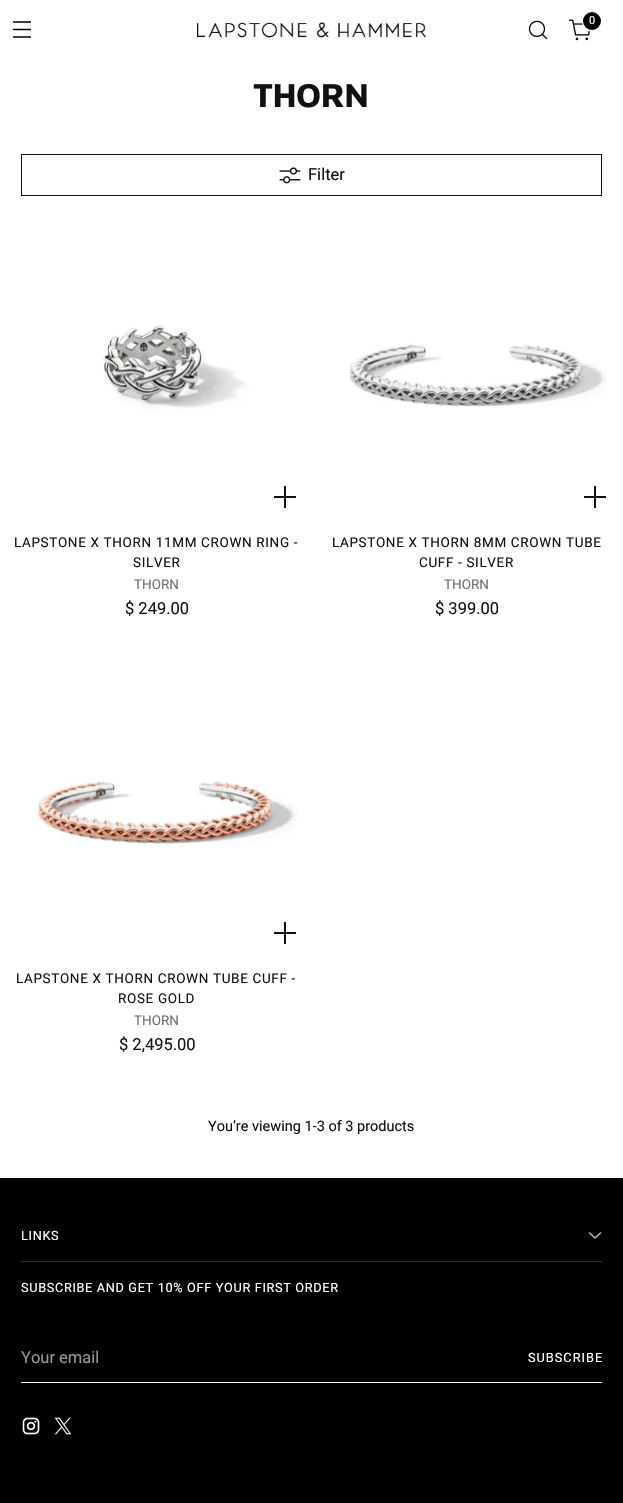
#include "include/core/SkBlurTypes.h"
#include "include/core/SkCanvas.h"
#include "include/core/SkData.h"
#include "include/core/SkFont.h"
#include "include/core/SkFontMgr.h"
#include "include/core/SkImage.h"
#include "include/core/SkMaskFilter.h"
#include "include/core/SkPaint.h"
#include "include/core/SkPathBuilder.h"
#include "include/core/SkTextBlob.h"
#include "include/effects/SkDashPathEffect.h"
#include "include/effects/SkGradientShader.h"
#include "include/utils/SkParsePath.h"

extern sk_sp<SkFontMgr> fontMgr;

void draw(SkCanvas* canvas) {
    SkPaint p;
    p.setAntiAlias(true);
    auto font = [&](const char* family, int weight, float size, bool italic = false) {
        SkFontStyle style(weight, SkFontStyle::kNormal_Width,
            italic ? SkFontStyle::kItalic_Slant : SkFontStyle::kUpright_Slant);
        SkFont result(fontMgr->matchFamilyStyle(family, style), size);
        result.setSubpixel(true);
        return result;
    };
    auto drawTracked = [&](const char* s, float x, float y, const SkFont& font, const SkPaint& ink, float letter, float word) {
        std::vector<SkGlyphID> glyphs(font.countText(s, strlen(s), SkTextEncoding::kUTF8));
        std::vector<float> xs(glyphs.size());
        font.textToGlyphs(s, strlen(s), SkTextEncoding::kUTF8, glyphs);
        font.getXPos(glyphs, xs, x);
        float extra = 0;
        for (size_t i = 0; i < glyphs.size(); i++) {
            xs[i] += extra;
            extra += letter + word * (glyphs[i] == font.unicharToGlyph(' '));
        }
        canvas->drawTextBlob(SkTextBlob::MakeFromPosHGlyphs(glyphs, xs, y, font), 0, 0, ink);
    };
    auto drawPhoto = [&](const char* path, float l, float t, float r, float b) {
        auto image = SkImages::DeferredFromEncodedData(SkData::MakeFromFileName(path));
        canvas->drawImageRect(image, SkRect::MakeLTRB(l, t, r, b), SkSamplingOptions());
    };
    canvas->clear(0xFFFFFFFF);
    p.setStyle(SkPaint::kStroke_Style);
    p.setStrokeWidth(1.3f);
    p.setColor(0xFF000000);
    canvas->drawPath(SkPathBuilder().moveTo(13, 29.5f).lineTo(31, 29.5f).moveTo(13, 22).lineTo(31, 22).moveTo(13, 37).lineTo(31, 37).detach(), p);
    drawPhoto("media/1.png", 528, 20, 548, 40);
    drawPhoto("media/2.png", 569, 19, 591, 41);
    p.setStrokeWidth(2);
    p.setColor(0xFFFFFFFF);
    canvas->drawCircle(592.5f, 21.5f, 9.5f, p);
    p.setStyle(SkPaint::kFill_Style);
    p.setColor(0xFF000000);
    canvas->drawCircle(592, 21, 9, p);
    auto font1 = font("Roboto", 400, 11);
    p.setColor(0xFFFFFFFF);
    canvas->drawString("0", 589, 24, font1, p);
    drawPhoto("media/3.png", 197, 22, 427, 38);
    auto font2 = font("Maven Pro", 700, 34);
    p.setColor(0xFF111111);
    drawTracked("THORN", 253, 107, font2, p, -0.5f, 0);
    p.setStyle(SkPaint::kStroke_Style);
    p.setStrokeWidth(1);
    canvas->drawRect(SkRect::MakeLTRB(21.5f, 154.5f, 601.5f, 195.5f), p);
    drawPhoto("media/4.png", 279, 167, 301, 184);
    auto font3 = font("Roboto", 400, 16.5f);
    p.setStyle(SkPaint::kFill_Style);
    canvas->drawString("Filter", 308, 180, font3, p);
    drawPhoto("media/5.png", 103, 325, 249, 409);
    p.setStyle(SkPaint::kStroke_Style);
    p.setStrokeWidth(2);
    canvas->drawPath(SkPathBuilder().moveTo(274, 497).lineTo(285, 497).moveTo(296, 497).lineTo(285, 497).moveTo(285, 497).lineTo(285, 486).moveTo(285, 497).lineTo(285, 508).detach(), p);
    auto font4 = font("Roboto", 400, 13.5f);
    p.setStyle(SkPaint::kFill_Style);
    drawTracked("LAPSTONE X THORN 11MM CROWN RING -", 14, 547, font4, p, 0.65f, 0);
    drawTracked("SILVER", 133, 567, font4, p, 0.65f, 0);
    p.setColor(0xFF707070);
    canvas->drawString("THORN", 134, 589, font4, p);
    p.setColor(0xFF111111);
    canvas->drawString("$ 249.00", 125, 614, font3, p);
    drawPhoto("media/6.png", 349, 343, 607, 407);
    p.setStyle(SkPaint::kStroke_Style);
    canvas->drawPath(SkPathBuilder().moveTo(584, 497).lineTo(595, 497).moveTo(606, 497).lineTo(595, 497).moveTo(595, 497).lineTo(595, 486).moveTo(595, 497).lineTo(595, 508).detach(), p);
    p.setStyle(SkPaint::kFill_Style);
    drawTracked("LAPSTONE X THORN 8MM CROWN TUBE", 332, 547, font4, p, 0.65f, 0);
    drawTracked("CUFF - SILVER", 419, 567, font4, p, 0.65f, 0);
    p.setColor(0xFF707070);
    canvas->drawString("THORN", 444, 589, font4, p);
    p.setColor(0xFF111111);
    canvas->drawString("$ 399.00", 435, 614, font3, p);
    drawPhoto("media/7.png", 37, 781, 297, 846);
    p.setStyle(SkPaint::kStroke_Style);
    canvas->drawPath(SkPathBuilder().moveTo(274, 933).lineTo(285, 933).moveTo(296, 933).lineTo(285, 933).moveTo(285, 933).lineTo(285, 922).moveTo(285, 933).lineTo(285, 944).detach(), p);
    p.setStyle(SkPaint::kFill_Style);
    drawTracked("LAPSTONE X THORN CROWN TUBE CUFF -", 16, 983, font4, p, 0.65f, 0);
    drawTracked("ROSE GOLD", 118, 1003, font4, p, 0.65f, 0);
    p.setColor(0xFF707070);
    canvas->drawString("THORN", 134, 1025, font4, p);
    p.setColor(0xFF111111);
    canvas->drawString("$ 2,495.00", 119, 1050, font3, p);
    auto font5 = font("Roboto", 400, 14.5f);
    canvas->drawString("You’re viewing 1-3 of 3 products", 208, 1131, font5, p);
    p.setColor(0xFF000000);
    canvas->drawRect(SkRect::MakeLTRB(0, 1178, 623, 1503), p);
    p.setColor(0xFF333333);
    canvas->drawRect(SkRect::MakeLTRB(21, 1261, 602, 1262), p);
    auto font6 = font("Roboto", 400, 12.75f);
    p.setColor(0xFFFFFFFF);
    drawTracked("LINKS", 21, 1240, font6, p, 0.65f, 0);
    p.setStyle(SkPaint::kStroke_Style);
    p.setStrokeWidth(1.6f);
    p.setColor(0xFFB3B3B3);
    canvas->drawPath(SkPathBuilder().moveTo(589, 1232.5f).lineTo(595, 1238).lineTo(601, 1232.5f).detach(), p);
    p.setStyle(SkPaint::kFill_Style);
    p.setColor(0xFFFFFFFF);
    drawTracked("SUBSCRIBE AND GET 10% OFF YOUR FIRST ORDER", 21, 1292, font6, p, 0.65f, 0);
    canvas->drawRect(SkRect::MakeLTRB(21, 1382, 602, 1383), p);
    p.setColor(0xFF999999);
    canvas->drawString("Your email", 21, 1363, font3, p);
    p.setColor(0xFFFFFFFF);
    drawTracked("SUBSCRIBE", 528, 1362, font6, p, 1, 0);
    drawPhoto("media/8.png", 22, 1417, 40, 1435);
    drawPhoto("media/9.png", 54, 1417, 72, 1435);
}
